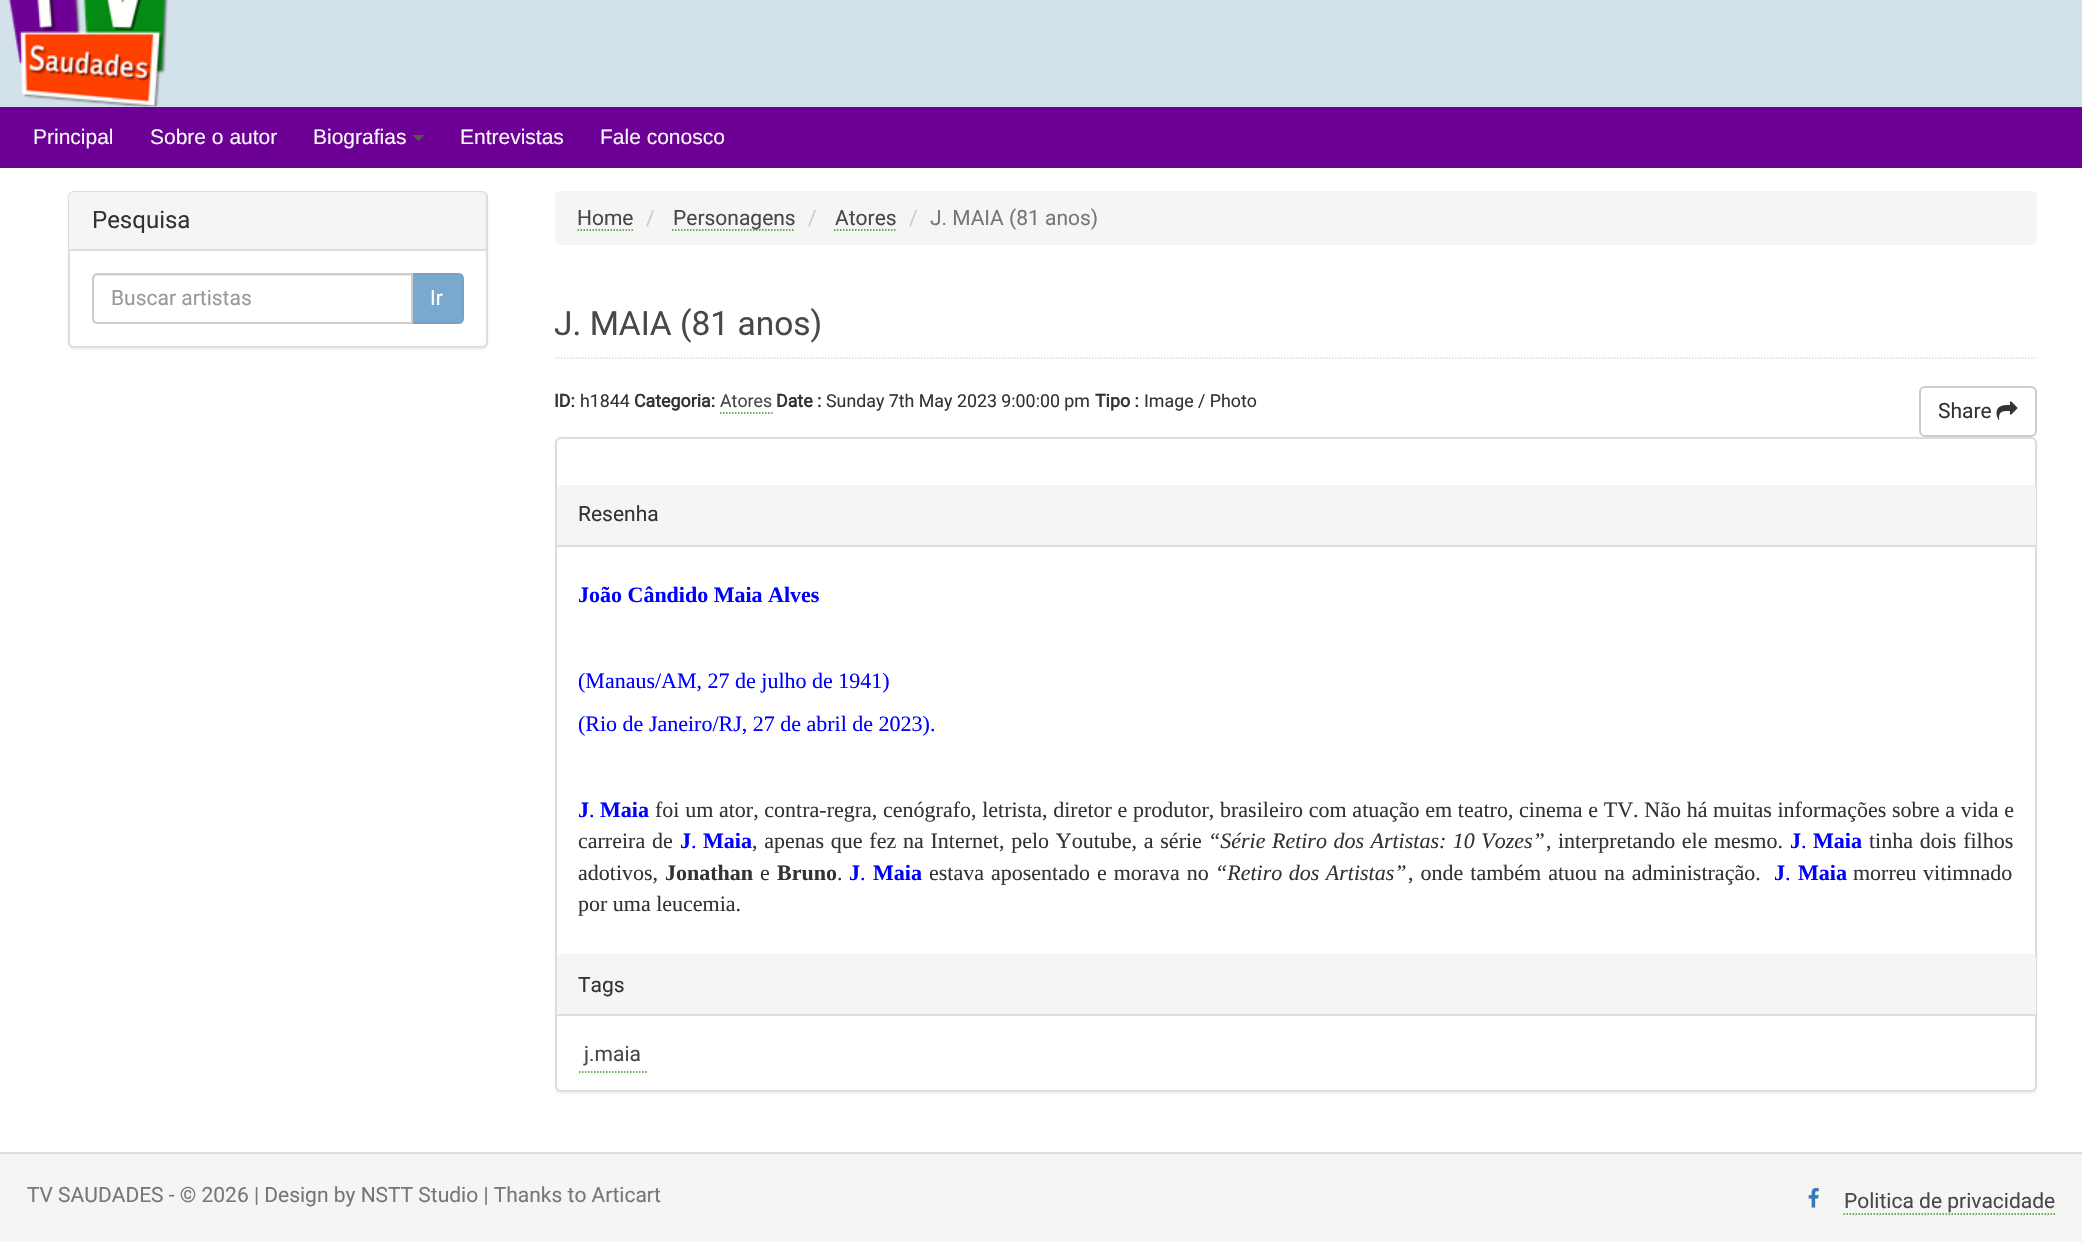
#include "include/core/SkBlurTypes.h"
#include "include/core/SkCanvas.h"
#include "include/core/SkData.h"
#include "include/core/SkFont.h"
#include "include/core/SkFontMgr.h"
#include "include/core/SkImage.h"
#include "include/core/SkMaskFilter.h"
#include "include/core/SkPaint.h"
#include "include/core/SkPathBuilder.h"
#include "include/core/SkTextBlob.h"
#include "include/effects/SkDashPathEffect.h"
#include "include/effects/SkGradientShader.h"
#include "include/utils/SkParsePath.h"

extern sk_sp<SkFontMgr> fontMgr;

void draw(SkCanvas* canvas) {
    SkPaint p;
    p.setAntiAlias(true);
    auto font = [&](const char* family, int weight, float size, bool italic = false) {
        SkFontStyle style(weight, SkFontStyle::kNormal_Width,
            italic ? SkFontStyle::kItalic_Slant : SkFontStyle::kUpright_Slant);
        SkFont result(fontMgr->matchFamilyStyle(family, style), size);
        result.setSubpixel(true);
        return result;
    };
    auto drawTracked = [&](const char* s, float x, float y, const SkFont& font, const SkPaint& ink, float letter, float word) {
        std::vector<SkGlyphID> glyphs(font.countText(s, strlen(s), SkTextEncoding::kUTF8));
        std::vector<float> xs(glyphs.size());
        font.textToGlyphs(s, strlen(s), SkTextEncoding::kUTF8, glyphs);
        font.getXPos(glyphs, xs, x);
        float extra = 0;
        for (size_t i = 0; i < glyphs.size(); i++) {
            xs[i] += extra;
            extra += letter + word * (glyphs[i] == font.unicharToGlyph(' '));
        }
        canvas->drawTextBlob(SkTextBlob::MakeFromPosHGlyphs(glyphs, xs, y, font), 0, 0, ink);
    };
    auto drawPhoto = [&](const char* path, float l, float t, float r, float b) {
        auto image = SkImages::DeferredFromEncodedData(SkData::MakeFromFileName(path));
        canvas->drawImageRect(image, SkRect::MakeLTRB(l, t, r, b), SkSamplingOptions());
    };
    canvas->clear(0xFFFFFFFF);
    p.setColor(0xFFD3E1EB);
    canvas->drawRect(SkRect::MakeLTRB(0, 0, 2082, 107), p);
    drawPhoto("media/1.png", 8, 0, 168, 107);
    p.setColor(0xFF6D0094);
    canvas->drawRect(SkRect::MakeLTRB(0, 107, 2082, 168), p);
    auto font1 = font("Liberation Sans", 400, 21);
    p.setColor(0xFFF7F7F7);
    {
        const struct { const char* s; float x, y; } items[] = {
            {"Principal", 33, 144},
            {"Sobre o autor", 150, 144},
            {"Biografias", 313, 144},
        };
        for (auto [s, x, y] : items) {
            canvas->drawString(s, x, y, font1, p);
        }
    }
    p.setColor(0xFF555555);
    canvas->drawPath(SkPathBuilder().moveTo(412.5f, 135).lineTo(424.5f, 135).lineTo(418.5f, 141).close().detach(), p);
    p.setColor(0xFFF7F7F7);
    canvas->drawString("Entrevistas", 460, 144, font1, p);
    canvas->drawString("Fale conosco", 600, 144, font1, p);
    p.setColor(0x0D000000);
    p.setMaskFilter(SkMaskFilter::MakeBlur(kNormal_SkBlurStyle, 1));
    canvas->drawRoundRect(SkRect::MakeLTRB(68, 192, 488, 350), 6, 6, p);
    p.setMaskFilter(nullptr);
    p.setColor(0xFFFFFFFF);
    canvas->drawRoundRect(SkRect::MakeLTRB(69, 192, 487, 347), 5, 5, p);
    p.setStyle(SkPaint::kStroke_Style);
    p.setStrokeWidth(2);
    p.setColor(0xFFDDDDDD);
    canvas->drawRoundRect(SkRect::MakeLTRB(69, 192, 487, 347), 5, 5, p);
    p.setStyle(SkPaint::kFill_Style);
    p.setColor(0xFFF5F5F5);
    canvas->drawPath(SkPathBuilder().moveTo(74, 192).lineTo(481, 192).cubicTo(484, 192, 486, 194, 486, 197).lineTo(486, 251).lineTo(69, 251).lineTo(69, 197).cubicTo(69, 194, 71, 192, 74, 192).close().detach(), p);
    p.setColor(0xFFDDDDDD);
    canvas->drawRect(SkRect::MakeLTRB(69, 249, 486, 251), p);
    auto font2 = font("Roboto", 400, 24);
    p.setColor(0xFF333333);
    canvas->drawString("Pesquisa", 92, 228, font2, p);
    p.setColor(0xFF7AA9D0);
    canvas->drawPath(SkPathBuilder().moveTo(412, 274).lineTo(458, 274).cubicTo(461, 274, 463, 276, 463, 279).lineTo(463, 318).cubicTo(463, 321, 461, 323, 458, 323).lineTo(412, 323).close().detach(), p);
    p.setStyle(SkPaint::kStroke_Style);
    p.setColor(0xFF77A0C4);
    canvas->drawPath(SkPathBuilder().moveTo(412, 274).lineTo(458, 274).cubicTo(461, 274, 463, 276, 463, 279).lineTo(463, 318).cubicTo(463, 321, 461, 323, 458, 323).lineTo(412, 323).close().detach(), p);
    p.setStyle(SkPaint::kFill_Style);
    p.setColor(0xFFFFFFFF);
    canvas->drawPath(SkPathBuilder().moveTo(98, 273).lineTo(413, 273).lineTo(413, 324).lineTo(98, 324).cubicTo(94.5f, 324, 92, 321.5f, 92, 318).lineTo(92, 279).cubicTo(92, 275.5f, 94.5f, 273, 98, 273).close().detach(), p);
    p.setColor(0xFFECECEC);
    canvas->drawPath(SkPathBuilder().moveTo(98, 276).lineTo(411, 276).lineTo(411, 275).lineTo(98, 275).cubicTo(95, 275, 93, 277, 93, 280).cubicTo(93, 278, 95, 276, 98, 276).close().detach(), p);
    p.setStyle(SkPaint::kStroke_Style);
    p.setColor(0xFFCCCCCC);
    canvas->drawPath(SkPathBuilder().moveTo(98, 274).lineTo(412, 274).lineTo(412, 323).lineTo(98, 323).cubicTo(95, 323, 93, 321, 93, 318).lineTo(93, 279).cubicTo(93, 276, 95, 274, 98, 274).close().detach(), p);
    auto font3 = font("Roboto", 400, 21);
    p.setStyle(SkPaint::kFill_Style);
    p.setColor(0xFF999999);
    canvas->drawString("Buscar artistas", 111, 305, font3, p);
    p.setColor(0xFFFFFFFF);
    canvas->drawString("Ir", 430, 305, font3, p);
    p.setColor(0xFFF5F5F5);
    canvas->drawRoundRect(SkRect::MakeLTRB(555, 191, 2037, 245), 6, 6, p);
    p.setColor(0xFF484848);
    canvas->drawString("Home", 577, 225, font3, p);
    p.setStyle(SkPaint::kStroke_Style);
    p.setStrokeWidth(1.5f);
    p.setColor(0xFF3D9228);
    p.setPathEffect(SkDashPathEffect::Make({{1.5f, 1.5f}}, 0));
    canvas->drawPath(SkPathBuilder().moveTo(577.5f, 230).lineTo(633, 230).detach(), p);
    p.setPathEffect(nullptr);
    p.setStyle(SkPaint::kFill_Style);
    p.setColor(0xFFCCCCCC);
    canvas->drawString("/", 646, 225, font3, p);
    p.setStyle(SkPaint::kStroke_Style);
    p.setColor(0xFF3D9228);
    p.setPathEffect(SkDashPathEffect::Make({{1.5f, 1.5f}}, 0));
    canvas->drawPath(SkPathBuilder().moveTo(672, 230).lineTo(795, 230).detach(), p);
    p.setPathEffect(nullptr);
    p.setStyle(SkPaint::kFill_Style);
    p.setColor(0xFF484848);
    canvas->drawString("Personagens", 673, 225, font3, p);
    p.setColor(0xFFCCCCCC);
    canvas->drawString("/", 808, 225, font3, p);
    p.setColor(0xFF484848);
    canvas->drawString("Atores", 835, 225, font3, p);
    p.setStyle(SkPaint::kStroke_Style);
    p.setColor(0xFF3D9228);
    p.setPathEffect(SkDashPathEffect::Make({{1.5f, 1.5f}}, 0));
    canvas->drawPath(SkPathBuilder().moveTo(834, 230).lineTo(897, 230).detach(), p);
    p.setPathEffect(nullptr);
    p.setStyle(SkPaint::kFill_Style);
    p.setColor(0xFFCCCCCC);
    canvas->drawString("/", 909, 225, font3, p);
    p.setColor(0xFF777777);
    canvas->drawString("J. MAIA (81 anos)", 930, 225, font3, p);
    p.setStyle(SkPaint::kStroke_Style);
    p.setColor(0xFFDDDDDD);
    p.setPathEffect(SkDashPathEffect::Make({{1.5f, 1.5f}}, 0));
    canvas->drawPath(SkPathBuilder().moveTo(555, 358).lineTo(2037, 358).detach(), p);
    p.setPathEffect(nullptr);
    auto font4 = font("Roboto", 400, 33.5f);
    p.setStyle(SkPaint::kFill_Style);
    p.setColor(0xFF484848);
    canvas->drawString("J. MAIA (81 anos)", 554, 335, font4, p);
    auto font5 = font("Roboto", 700, 17.8f);
    p.setColor(0xFF333333);
    canvas->drawString("ID:", 554, 407, font5, p);
    auto font6 = font("Roboto", 400, 17.8f);
    canvas->drawString("h1844", 580, 407, font6, p);
    canvas->drawString("Categoria:", 634, 407, font5, p);
    p.setColor(0xFF484848);
    canvas->drawString("Atores", 720, 407, font6, p);
    p.setStyle(SkPaint::kStroke_Style);
    p.setColor(0xFF3D9228);
    p.setPathEffect(SkDashPathEffect::Make({{1.5f, 1.5f}}, 0));
    canvas->drawPath(SkPathBuilder().moveTo(720, 413).lineTo(772.5f, 413).detach(), p);
    p.setPathEffect(nullptr);
    p.setStyle(SkPaint::kFill_Style);
    p.setColor(0xFF333333);
    canvas->drawString("Date :", 776, 407, font5, p);
    canvas->drawString("Sunday 7th May 2023 9:00:00 pm", 826, 407, font6, p);
    canvas->drawString("Tipo :", 1095, 407, font5, p);
    canvas->drawString("Image / Photo", 1144, 407, font6, p);
    p.setColor(0x0D000000);
    p.setMaskFilter(SkMaskFilter::MakeBlur(kNormal_SkBlurStyle, 1));
    canvas->drawRoundRect(SkRect::MakeLTRB(555, 438, 2037, 1094), 6, 6, p);
    p.setMaskFilter(nullptr);
    p.setStyle(SkPaint::kStroke_Style);
    p.setStrokeWidth(2);
    p.setColor(0xFFCCCCCC);
    canvas->drawRoundRect(SkRect::MakeLTRB(1920, 387, 2036, 436), 5, 5, p);
    p.setStyle(SkPaint::kFill_Style);
    p.setColor(0xFF333333);
    canvas->drawString("Share", 1938, 418, font3, p);
    drawPhoto("media/2.png", 1996, 401, 2018, 420);
    p.setColor(0xFFFFFFFF);
    canvas->drawRoundRect(SkRect::MakeLTRB(556, 438, 2036, 1091), 5, 5, p);
    p.setStyle(SkPaint::kStroke_Style);
    p.setColor(0xFFDDDDDD);
    canvas->drawRoundRect(SkRect::MakeLTRB(556, 438, 2036, 1091), 5, 5, p);
    p.setStyle(SkPaint::kFill_Style);
    p.setColor(0xFFF5F5F5);
    canvas->drawPath(SkPathBuilder().moveTo(562, 485).lineTo(2031, 485).cubicTo(2034, 485, 2036, 487, 2036, 490).lineTo(2036, 546).lineTo(557, 546).lineTo(557, 490).cubicTo(557, 487, 559, 485, 562, 485).close().detach(), p);
    p.setColor(0xFFDDDDDD);
    canvas->drawRect(SkRect::MakeLTRB(557, 545, 2036, 547), p);
    p.setColor(0xFF333333);
    canvas->drawString("Resenha", 578, 521, font3, p);
    auto font7 = font("Liberation Serif", 700, 22);
    p.setColor(0xFF0000FF);
    canvas->drawString("João Cândido Maia Alves", 578, 602, font7, p);
    auto font8 = font("Liberation Serif", 400, 22);
    canvas->drawString("(Manaus/AM, 27 de julho de 1941)", 578, 688, font8, p);
    canvas->drawString("(Rio de Janeiro/RJ, 27 de abril de 2023).", 578, 731, font8, p);
    canvas->drawString("J", 578, 817, font7, p);
    canvas->drawString(".", 589, 817, font8, p);
    canvas->drawString("Maia", 600, 817, font7, p);
    p.setColor(0xFF333333);
    drawTracked("foi um ator, contra-regra, cenógrafo, letrista, diretor e produtor, brasileiro com atuação em teatro, cinema e TV. Não há muitas informações sobre a vida e", 655, 817, font8, p, 0, 0.2f);
    drawTracked("carreira de", 578, 848, font8, p, 0, 1.25f);
    p.setColor(0xFF0000FF);
    canvas->drawString("J", 680, 848, font7, p);
    canvas->drawString(".", 691, 848, font8, p);
    canvas->drawString("Maia", 703, 848, font7, p);
    p.setColor(0xFF333333);
    drawTracked(", apenas que fez na Internet, pelo Youtube, a série", 752, 848, font8, p, 0, 1.25f);
    auto font9 = font("Liberation Serif", 400, 22, true);
    drawTracked("“Série Retiro dos Artistas: 10 Vozes”", 1208, 848, font9, p, 0, 1);
    drawTracked(", interpretando ele mesmo.", 1546, 848, font8, p, 0, 1);
    p.setColor(0xFF0000FF);
    canvas->drawString("J", 1790, 848, font7, p);
    canvas->drawString(".", 1801, 848, font8, p);
    canvas->drawString("Maia", 1813, 848, font7, p);
    p.setColor(0xFF333333);
    drawTracked("tinha dois filhos", 1869, 848, font8, p, 0, 1.25f);
    canvas->drawString("adotivos,", 578, 880, font8, p);
    canvas->drawString("Jonathan", 665, 880, font7, p);
    canvas->drawString("e", 760, 880, font8, p);
    canvas->drawString("Bruno", 777, 880, font7, p);
    canvas->drawString(".", 837, 880, font8, p);
    p.setColor(0xFF0000FF);
    canvas->drawString("J", 849, 880, font7, p);
    canvas->drawString(".", 860, 880, font8, p);
    canvas->drawString("Maia", 873, 880, font7, p);
    p.setColor(0xFF333333);
    drawTracked("estava aposentado e morava no", 929, 880, font8, p, 0, 1.5f);
    drawTracked("“Retiro dos Artistas”", 1215, 880, font9, p, 0, 1);
    drawTracked(", onde também atuou na administração.", 1408, 880, font8, p, 0, 1.5f);
    p.setColor(0xFF0000FF);
    canvas->drawString("J", 1774, 880, font7, p);
    canvas->drawString(".", 1785, 880, font8, p);
    canvas->drawString("Maia", 1798, 880, font7, p);
    p.setColor(0xFF333333);
    drawTracked("morreu vitimnado", 1853, 880, font8, p, 0, 1);
    canvas->drawString("por uma leucemia.", 578, 911, font8, p);
    p.setColor(0xFFF5F5F5);
    canvas->drawPath(SkPathBuilder().moveTo(562, 954).lineTo(2031, 954).cubicTo(2034, 954, 2036, 956, 2036, 959).lineTo(2036, 1016).lineTo(557, 1016).lineTo(557, 959).cubicTo(557, 956, 559, 954, 562, 954).close().detach(), p);
    p.setColor(0xFFDDDDDD);
    canvas->drawRect(SkRect::MakeLTRB(557, 1014, 2036, 1016), p);
    p.setColor(0xFF333333);
    canvas->drawString("Tags", 578, 992, font3, p);
    p.setColor(0xFF484848);
    canvas->drawString("j.maia", 584, 1061, font3, p);
    p.setStyle(SkPaint::kStroke_Style);
    p.setStrokeWidth(1.5f);
    p.setColor(0xFF3D9228);
    p.setPathEffect(SkDashPathEffect::Make({{1.5f, 1.5f}}, 0));
    canvas->drawPath(SkPathBuilder().moveTo(579, 1072).lineTo(646.5f, 1072).detach(), p);
    p.setPathEffect(nullptr);
    p.setStyle(SkPaint::kFill_Style);
    p.setColor(0xFFF5F5F5);
    canvas->drawRect(SkRect::MakeLTRB(0, 1154, 2082, 1242), p);
    p.setColor(0xFFDDDDDD);
    canvas->drawRect(SkRect::MakeLTRB(0, 1152, 2082, 1154), p);
    p.setColor(0xFF777777);
    canvas->drawString("TV SAUDADES - © 2026 | Design by NSTT Studio | Thanks to Articart", 27, 1202, font3, p);
    drawPhoto("media/3.png", 1808, 1188, 1819, 1208);
    p.setColor(0xFF484848);
    canvas->drawString("Politica de privacidade", 1844, 1208, font3, p);
    p.setStyle(SkPaint::kStroke_Style);
    p.setColor(0xFF3D9228);
    p.setPathEffect(SkDashPathEffect::Make({{1.5f, 1.5f}}, 0));
    canvas->drawPath(SkPathBuilder().moveTo(1843.5f, 1214).lineTo(2055, 1214).detach(), p);
    p.setPathEffect(nullptr);
}
